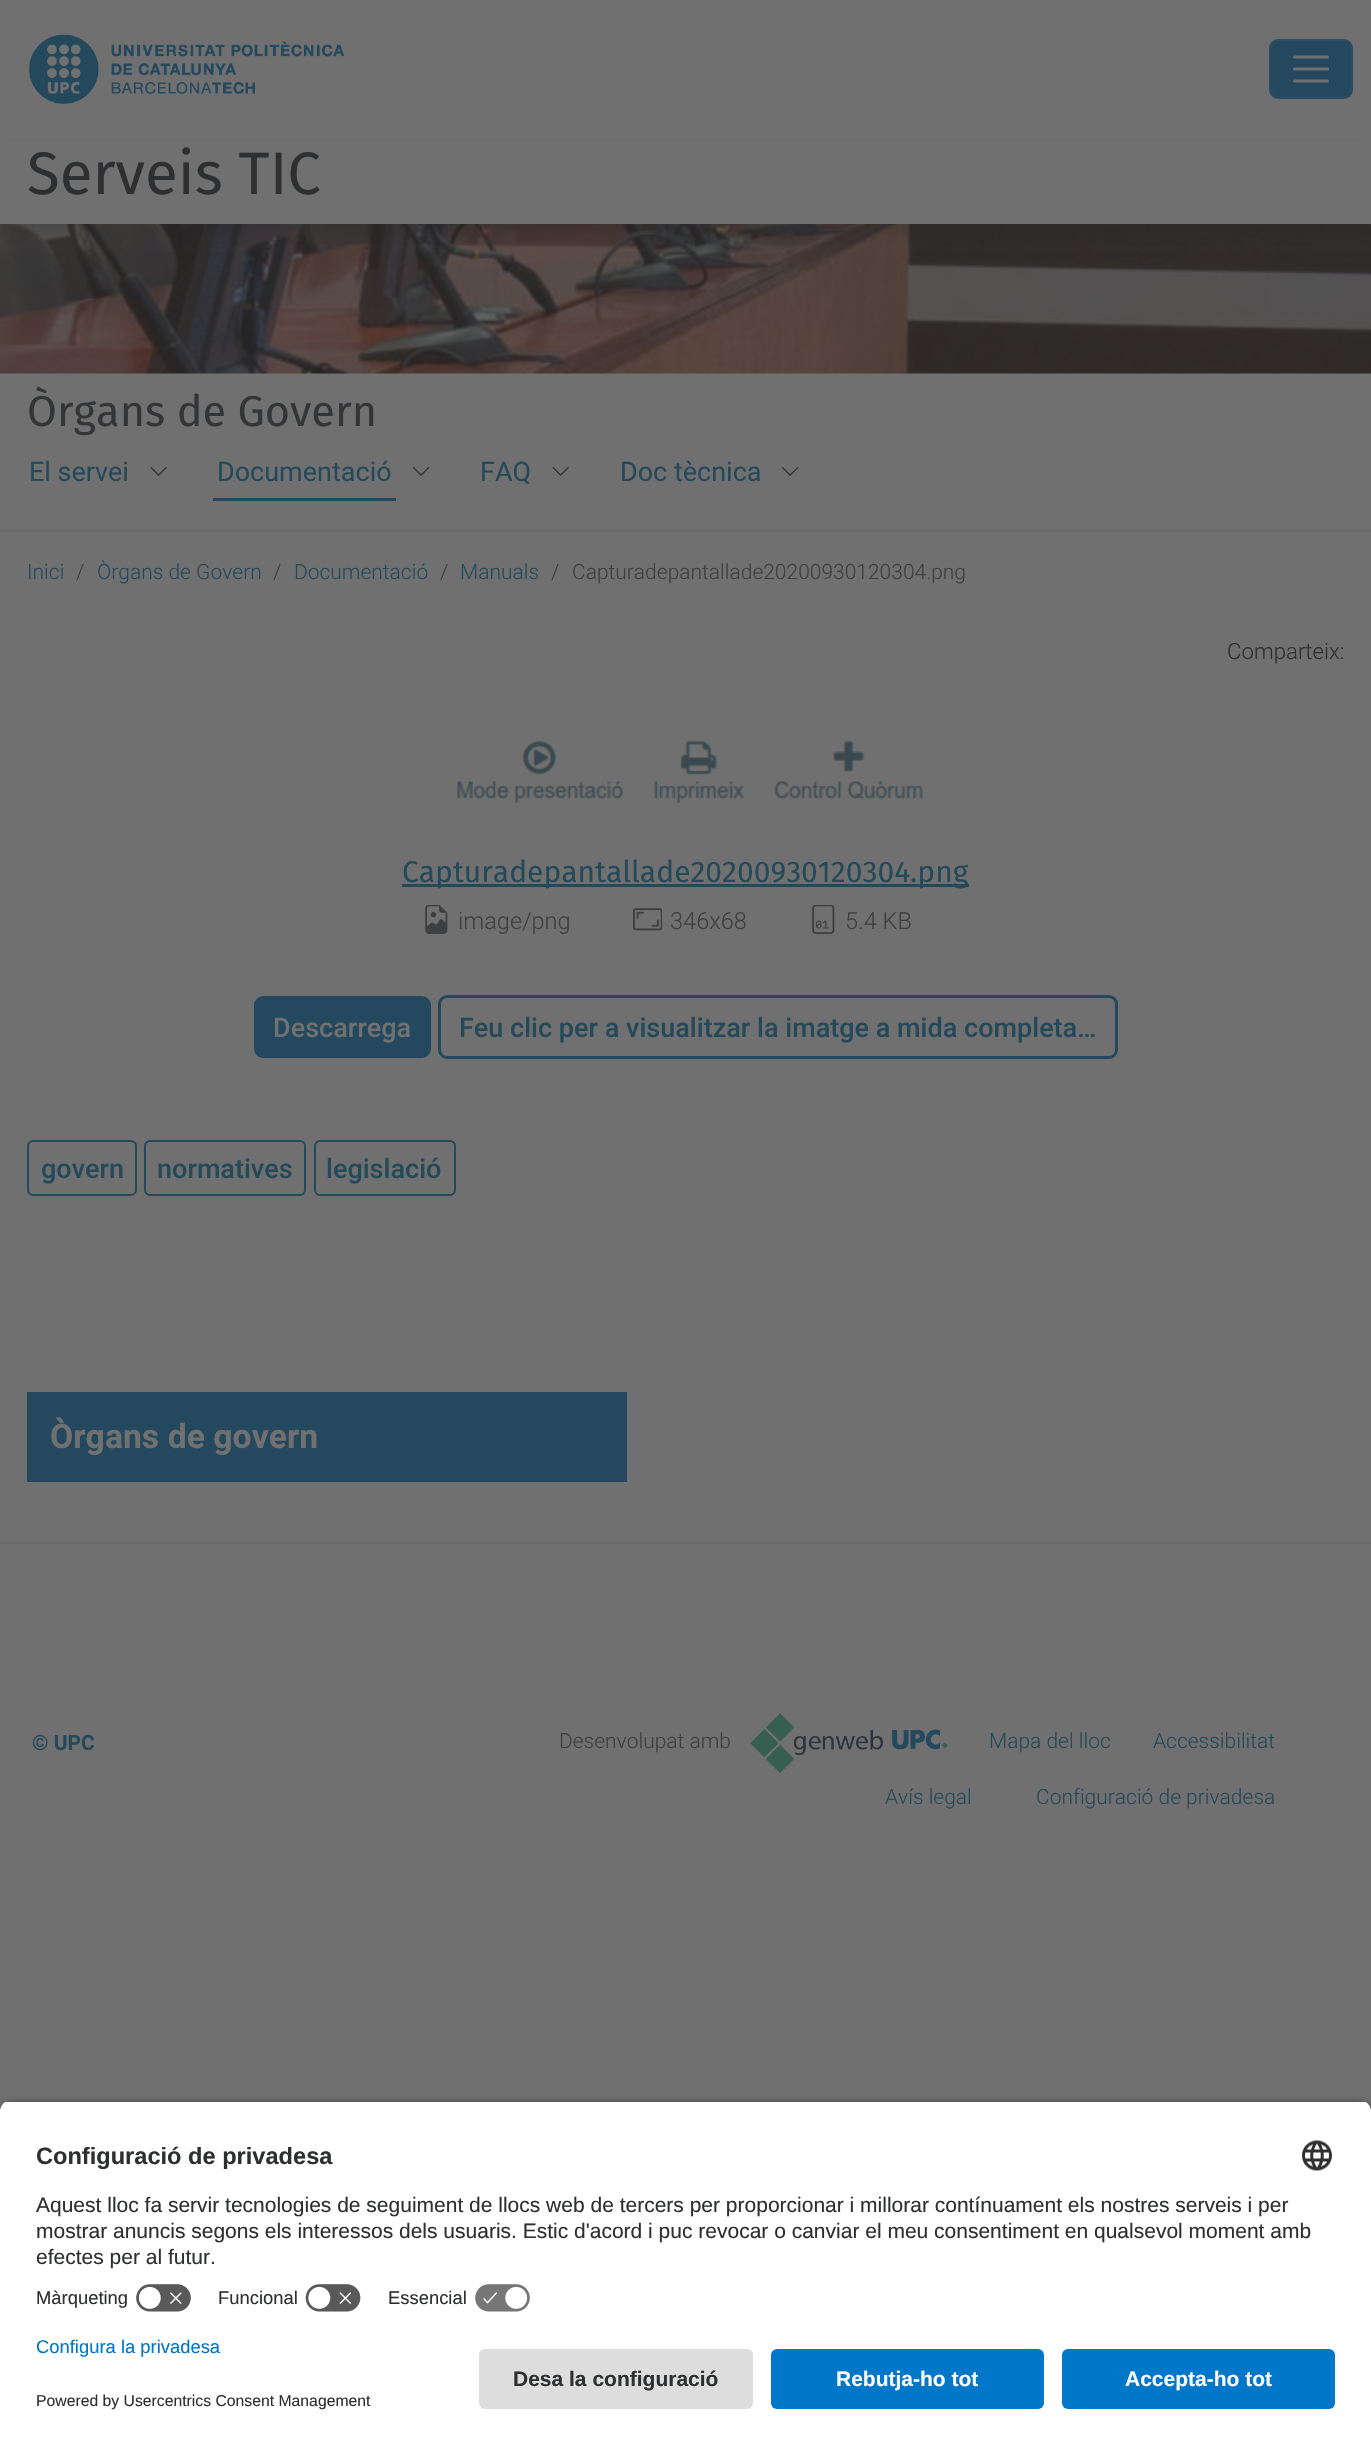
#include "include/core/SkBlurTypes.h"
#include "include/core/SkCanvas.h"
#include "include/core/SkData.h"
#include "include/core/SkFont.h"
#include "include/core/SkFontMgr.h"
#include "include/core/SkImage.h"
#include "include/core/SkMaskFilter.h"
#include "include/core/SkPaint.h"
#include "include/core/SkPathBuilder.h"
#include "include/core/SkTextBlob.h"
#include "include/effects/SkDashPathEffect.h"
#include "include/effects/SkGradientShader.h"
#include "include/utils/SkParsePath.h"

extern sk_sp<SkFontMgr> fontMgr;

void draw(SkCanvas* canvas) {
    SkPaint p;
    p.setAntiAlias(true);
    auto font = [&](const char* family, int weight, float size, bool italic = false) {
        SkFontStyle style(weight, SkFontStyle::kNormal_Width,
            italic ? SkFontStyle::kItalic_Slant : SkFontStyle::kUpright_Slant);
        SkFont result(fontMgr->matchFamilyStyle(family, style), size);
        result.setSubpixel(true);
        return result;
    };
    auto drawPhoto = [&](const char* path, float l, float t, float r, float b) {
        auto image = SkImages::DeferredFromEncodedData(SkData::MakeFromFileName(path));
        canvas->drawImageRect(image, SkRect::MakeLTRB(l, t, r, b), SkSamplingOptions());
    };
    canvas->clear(0xFF707070);
    drawPhoto("media/1.png", 29, 34, 345, 104);
    p.setColor(0xFF24495E);
    canvas->drawRoundRect(SkRect::MakeLTRB(1269, 39, 1353, 99), 9, 9, p);
    p.setStyle(SkPaint::kStroke_Style);
    p.setStrokeWidth(2);
    p.setColor(0x1A707070);
    canvas->drawRoundRect(SkRect::MakeLTRB(1270, 40, 1352, 98), 8, 8, p);
    p.setStrokeWidth(3);
    p.setStrokeCap(SkPaint::kRound_Cap);
    p.setColor(0xFF707070);
    canvas->drawPath(SkPathBuilder().moveTo(1294.5f, 57).lineTo(1327.5f, 57).moveTo(1294.5f, 69).lineTo(1327.5f, 69).moveTo(1294.5f, 81).lineTo(1327.5f, 81).detach(), p);
    drawPhoto("media/2.png", 0, 224, 1371, 374);
    p.setStyle(SkPaint::kFill_Style);
    p.setColor(0x33242424);
    p.setMaskFilter(SkMaskFilter::MakeBlur(kNormal_SkBlurStyle, 6));
    canvas->drawRect(SkRect::MakeLTRB(0, 149, 1371, 234), p);
    p.setMaskFilter(nullptr);
    p.setColor(0xFF707070);
    canvas->drawRect(SkRect::MakeLTRB(0, 143, 1371, 224), p);
    auto font1 = font("Fira Sans", 400, 60);
    p.setColor(0xFF2E2F30);
    canvas->drawString("Serveis TIC", 27, 194, font1, p);
    p.setColor(0xFF666869);
    canvas->drawRect(SkRect::MakeLTRB(0, 530, 1371, 532), p);
    auto font2 = font("Fira Sans", 400, 43.25f);
    p.setColor(0xFF333537);
    canvas->drawString("Òrgans de Govern", 27, 426, font2, p);
    auto font3 = font("Roboto", 400, 27);
    p.setColor(0xFF244959);
    canvas->drawString("El servei", 29, 481, font3, p);
    drawPhoto("media/3.png", 150, 467, 167, 476);
    p.setColor(0xFF24495E);
    canvas->drawRect(SkRect::MakeLTRB(213, 498, 396, 501), p);
    p.setColor(0xFF244959);
    canvas->drawString("Documentació", 217, 481, font3, p);
    drawPhoto("media/4.png", 412, 467, 430, 476);
    canvas->drawString("FAQ", 480, 481, font3, p);
    drawPhoto("media/3.png", 552, 467, 569, 476);
    canvas->drawString("Doc tècnica", 620, 481, font3, p);
    drawPhoto("media/4.png", 781, 467, 799, 476);
    auto font4 = font("Roboto", 300, 21);
    canvas->drawString("Inici", 27, 579, font4, p);
    p.setColor(0xFF3E3F40);
    canvas->drawString("/", 76, 579, font4, p);
    p.setColor(0xFF244959);
    canvas->drawString("Òrgans de Govern", 97, 579, font4, p);
    p.setColor(0xFF3E3F40);
    canvas->drawString("/", 273, 579, font4, p);
    p.setColor(0xFF244959);
    canvas->drawString("Documentació", 294, 579, font4, p);
    p.setColor(0xFF3E3F40);
    canvas->drawString("/", 440, 579, font4, p);
    p.setColor(0xFF244959);
    canvas->drawString("Manuals", 460, 579, font4, p);
    p.setColor(0xFF3E3F40);
    canvas->drawString("/", 551, 579, font4, p);
    canvas->drawString("Capturadepantallade20200930120304.png", 572, 579, font4, p);
    auto font5 = font("Roboto", 300, 22.25f);
    p.setColor(0xFF2E2F30);
    canvas->drawString("Comparteix:", 1227, 659, font5, p);
    drawPhoto("media/5.png", 456, 740, 923, 803);
    p.setColor(0xFF244959);
    canvas->drawRect(SkRect::MakeLTRB(402, 884, 969, 887), p);
    auto font6 = font("Fira Sans", 400, 30);
    canvas->drawString("Capturadepantallade20200930120304.png", 402, 882, font6, p);
    drawPhoto("media/6.png", 425, 905, 448, 934);
    auto font7 = font("Roboto", 300, 23.6f);
    p.setColor(0xFF3E3F40);
    canvas->drawString("image/png", 458, 929, font7, p);
    drawPhoto("media/7.png", 633, 908, 662, 931);
    canvas->drawString("346x68", 670, 929, font7, p);
    drawPhoto("media/8.png", 812, 905, 835, 934);
    canvas->drawString("5.4 KB", 845, 929, font7, p);
    p.setColor(0xFF24495E);
    canvas->drawRoundRect(SkRect::MakeLTRB(255, 997, 430, 1057), 8, 8, p);
    p.setStyle(SkPaint::kStroke_Style);
    p.setStrokeWidth(2);
    p.setStrokeCap(SkPaint::kButt_Cap);
    canvas->drawRoundRect(SkRect::MakeLTRB(255, 997, 430, 1057), 8, 8, p);
    auto font8 = font("Roboto", 500, 27);
    p.setStyle(SkPaint::kFill_Style);
    p.setColor(0xFF707070);
    canvas->drawString("Descarrega", 273, 1037, font8, p);
    p.setStyle(SkPaint::kStroke_Style);
    p.setStrokeWidth(3);
    p.setColor(0xFF24495E);
    canvas->drawRoundRect(SkRect::MakeLTRB(439.5f, 996.5f, 1116.5f, 1057.5f), 7.5f, 7.5f, p);
    p.setStyle(SkPaint::kFill_Style);
    p.setColor(0xFF244959);
    canvas->drawString("Feu clic per a visualitzar la imatge a mida completa…", 459, 1037, font8, p);
    p.setStyle(SkPaint::kStroke_Style);
    p.setStrokeWidth(2);
    canvas->drawRoundRect(SkRect::MakeLTRB(28, 1141, 136, 1195), 5, 5, p);
    p.setStyle(SkPaint::kFill_Style);
    canvas->drawString("govern", 41, 1178, font8, p);
    p.setStyle(SkPaint::kStroke_Style);
    canvas->drawRoundRect(SkRect::MakeLTRB(145, 1141, 305, 1195), 5, 5, p);
    p.setStyle(SkPaint::kFill_Style);
    canvas->drawString("normatives", 157, 1178, font8, p);
    p.setStyle(SkPaint::kStroke_Style);
    canvas->drawRoundRect(SkRect::MakeLTRB(315, 1141, 455, 1195), 5, 5, p);
    p.setStyle(SkPaint::kFill_Style);
    canvas->drawString("legislació", 326, 1178, font8, p);
    p.setColor(0xFF24495E);
    canvas->drawRect(SkRect::MakeLTRB(27, 1392, 627, 1482), p);
    auto font9 = font("Roboto", 700, 33.75f);
    p.setColor(0xFF707070);
    canvas->drawString("Òrgans de govern", 50, 1448, font9, p);
    p.setColor(0xFF666869);
    canvas->drawRect(SkRect::MakeLTRB(0, 1542, 1371, 1544), p);
    auto font10 = font("Roboto", 700, 21);
    p.setColor(0xFF244959);
    canvas->drawString("© UPC", 32, 1750, font10, p);
    p.setColor(0xFF3E3F40);
    canvas->drawString("Desenvolupat amb", 559, 1748, font4, p);
    drawPhoto("media/9.png", 750, 1713, 948, 1773);
    p.setColor(0xFF244959);
    {
        const struct { const char* s; float x, y; } items[] = {
            {"Mapa del lloc", 989, 1748},
            {"Accessibilitat", 1153, 1748},
            {"Avís legal", 885, 1804},
            {"Configuració de privadesa", 1036, 1804},
        };
        for (auto [s, x, y] : items) {
            canvas->drawString(s, x, y, font4, p);
        }
    }
    p.setColor(0xCC000000);
    p.setMaskFilter(SkMaskFilter::MakeBlur(kNormal_SkBlurStyle, 5));
    canvas->drawRoundRect(SkRect::MakeLTRB(0, 2105, 1371, 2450), 12, 12, p);
    p.setMaskFilter(nullptr);
    canvas->save();
    canvas->clipPath(SkPathBuilder().moveTo(12, 2100).lineTo(1359, 2100).cubicTo(1365.5f, 2100, 1371, 2105.5f, 1371, 2112).lineTo(1371, 2337).lineTo(0, 2337).lineTo(0, 2112).cubicTo(0, 2105.5f, 5.5f, 2100, 12, 2100).close().detach(), true);
    p.setColor(0xFFFFFFFF);
    canvas->drawRect(SkRect::MakeLTRB(0, 2102, 1371, 2337), p);
    canvas->drawRect(SkRect::MakeLTRB(0, 2102, 1371, 2277), p);
    canvas->restore();
    auto font11 = font("Liberation Sans", 700, 23.6f);
    p.setColor(0xFF2E2F30);
    canvas->drawString("Configuració de privadesa", 36, 2164, font11, p);
    drawPhoto("media/10.png", 1302, 2140, 1332, 2171);
    auto font12 = font("Liberation Sans", 400, 21);
    {
        const struct { const char* s; float x, y; } items[] = {
            {"Aquest lloc fa servir tecnologies de seguiment de llocs web de tercers per proporcionar i millorar contínuament els nostres serveis i per", 36, 2212},
            {"mostrar anuncis segons els interessos dels usuaris. Estic d'acord i puc revocar o canviar el meu consentiment en qualsevol moment amb", 36, 2238},
            {"efectes per al futur.", 36, 2264},
        };
        for (auto [s, x, y] : items) {
            canvas->drawString(s, x, y, font12, p);
        }
    }
    auto font13 = font("Liberation Sans", 400, 18.4f);
    canvas->drawString("Màrqueting", 36, 2304, font13, p);
    drawPhoto("media/11.png", 136, 2284, 191, 2312);
    canvas->drawString("Funcional", 218, 2304, font13, p);
    drawPhoto("media/12.png", 305, 2284, 361, 2312);
    canvas->drawString("Essencial", 388, 2304, font13, p);
    drawPhoto("media/13.png", 475, 2284, 530, 2312);
    p.setColor(0xFFFFFFFF);
    canvas->drawRect(SkRect::MakeLTRB(0, 2337, 1371, 2444), p);
    p.setColor(0xFF0077C8);
    canvas->drawString("Configura la privadesa", 36, 2353, font13, p);
    auto font14 = font("Liberation Sans", 400, 15.75f);
    p.setColor(0xFF2E2F30);
    canvas->drawString("Powered by Usercentrics Consent Management", 36, 2406, font14, p);
    p.setColor(0xFFDDDDDD);
    canvas->drawRoundRect(SkRect::MakeLTRB(479, 2349, 753, 2409), 6, 6, p);
    auto font15 = font("Liberation Sans", 700, 21);
    p.setColor(0xFF2E2F30);
    canvas->drawString("Desa la configuració", 513, 2386, font15, p);
    p.setColor(0xFF0077C8);
    canvas->drawRoundRect(SkRect::MakeLTRB(771, 2349, 1044, 2409), 6, 6, p);
    p.setColor(0xFFFAFAFA);
    canvas->drawString("Rebutja-ho tot", 836, 2386, font15, p);
    p.setColor(0xFF0077C8);
    canvas->drawRoundRect(SkRect::MakeLTRB(1062, 2349, 1335, 2409), 6, 6, p);
    p.setColor(0xFFFAFAFA);
    canvas->drawString("Accepta-ho tot", 1125, 2386, font15, p);
}
